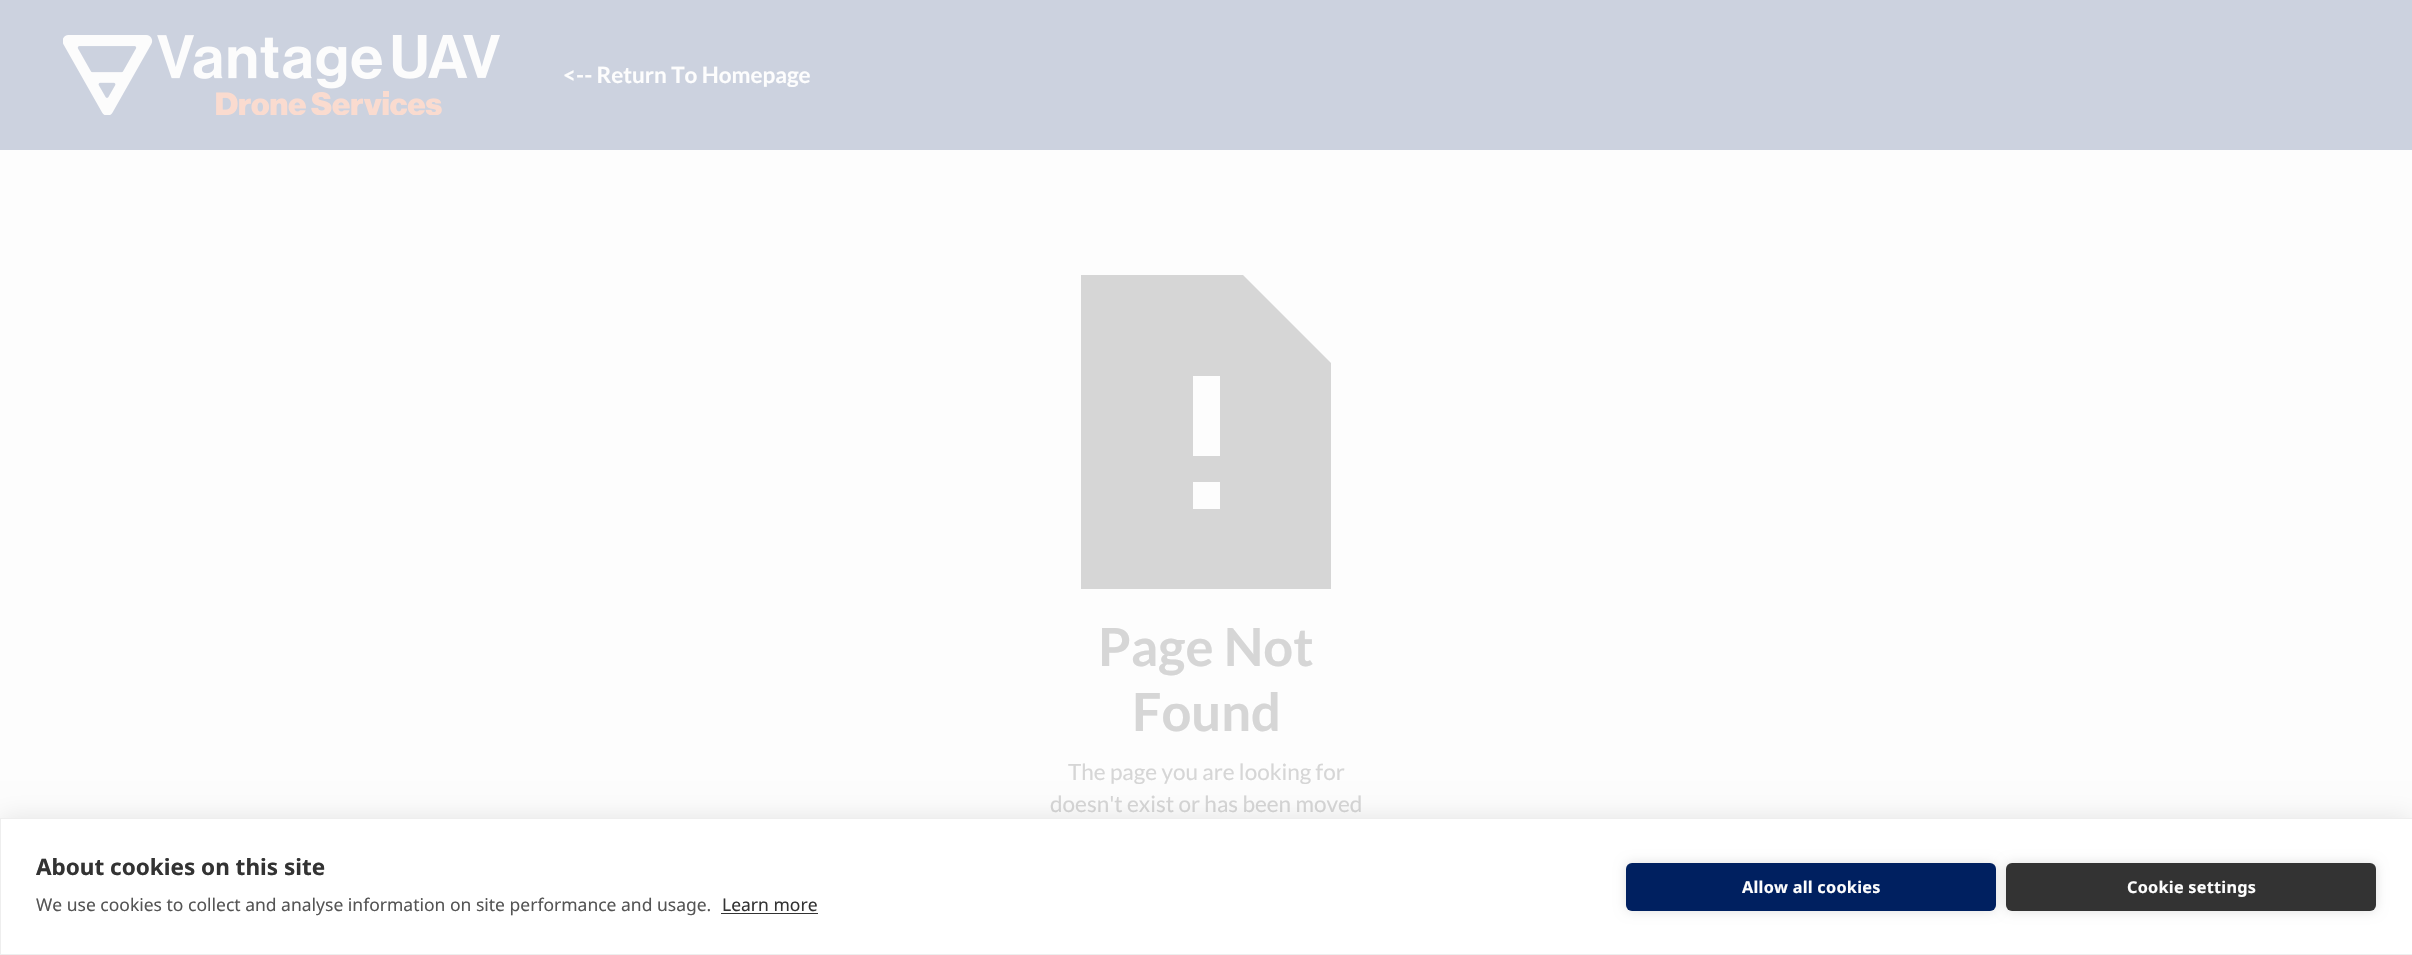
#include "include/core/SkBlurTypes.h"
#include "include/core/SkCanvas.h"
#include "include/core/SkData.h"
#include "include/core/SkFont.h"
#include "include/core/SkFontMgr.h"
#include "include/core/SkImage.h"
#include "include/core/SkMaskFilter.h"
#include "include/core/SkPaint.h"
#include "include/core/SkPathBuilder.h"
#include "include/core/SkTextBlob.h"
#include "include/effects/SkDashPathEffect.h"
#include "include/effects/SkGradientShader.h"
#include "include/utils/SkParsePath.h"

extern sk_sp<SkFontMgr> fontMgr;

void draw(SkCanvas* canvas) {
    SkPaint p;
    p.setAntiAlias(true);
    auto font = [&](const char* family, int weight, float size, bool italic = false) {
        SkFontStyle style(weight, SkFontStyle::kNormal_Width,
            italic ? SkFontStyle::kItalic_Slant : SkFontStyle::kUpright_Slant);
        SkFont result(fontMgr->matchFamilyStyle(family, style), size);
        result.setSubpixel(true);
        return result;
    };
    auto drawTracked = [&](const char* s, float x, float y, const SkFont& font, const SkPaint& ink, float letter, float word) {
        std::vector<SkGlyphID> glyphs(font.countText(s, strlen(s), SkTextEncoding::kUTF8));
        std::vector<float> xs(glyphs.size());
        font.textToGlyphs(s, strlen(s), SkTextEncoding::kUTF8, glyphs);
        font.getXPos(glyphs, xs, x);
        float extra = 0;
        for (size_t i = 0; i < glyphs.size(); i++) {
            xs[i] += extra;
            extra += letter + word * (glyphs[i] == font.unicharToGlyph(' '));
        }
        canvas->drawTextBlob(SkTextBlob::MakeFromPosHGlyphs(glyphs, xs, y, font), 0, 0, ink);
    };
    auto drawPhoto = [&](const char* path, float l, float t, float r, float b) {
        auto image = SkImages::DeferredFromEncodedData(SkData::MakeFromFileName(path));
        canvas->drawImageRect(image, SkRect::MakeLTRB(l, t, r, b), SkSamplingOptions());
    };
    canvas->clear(0xFFFDFDFD);
    p.setColor(0xFFCCD2DF);
    canvas->drawRect(SkRect::MakeLTRB(0, 0, 2412, 150), p);
    drawPhoto("media/1.png", 63, 35, 500, 115);
    auto font1 = font("Lato", 700, 22.5f);
    p.setColor(0xFFFDFDFD);
    canvas->drawString("<-- Return To Homepage", 563, 83, font1, p);
    p.setColor(0xFFD6D6D6);
    canvas->drawPath(SkPathBuilder(SkPathFillType::kEvenOdd).moveTo(1081, 275).lineTo(1243, 275).lineTo(1331, 363).lineTo(1331, 589).lineTo(1081, 589).close().moveTo(1193, 376).lineTo(1220, 376).lineTo(1220, 456).lineTo(1193, 456).close().moveTo(1193, 482).lineTo(1220, 482).lineTo(1220, 509).lineTo(1193, 509).close().detach(), p);
    auto font2 = font("Lato", 700, 52.5f);
    canvas->drawString("Page Not", 1098, 666, font2, p);
    canvas->drawString("Found", 1132, 731, font2, p);
    auto font3 = font("Lato", 400, 22.5f);
    canvas->drawString("The page you are looking for", 1068, 780, font3, p);
    canvas->drawString("doesn't exist or has been moved", 1050, 812, font3, p);
    p.setColor(0x1A000000);
    p.setMaskFilter(SkMaskFilter::MakeBlur(kNormal_SkBlurStyle, 12.5f));
    canvas->drawRect(SkRect::MakeLTRB(0, 818, 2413, 955), p);
    p.setMaskFilter(nullptr);
    p.setColor(0xFFFFFFFF);
    canvas->drawRect(SkRect::MakeLTRB(0.5f, 818.5f, 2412.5f, 954.5f), p);
    p.setStyle(SkPaint::kStroke_Style);
    p.setStrokeWidth(1);
    p.setColor(0xFFEEEEEE);
    canvas->drawRect(SkRect::MakeLTRB(0.5f, 818.5f, 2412.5f, 954.5f), p);
    auto font4 = font("Noto Sans", 700, 22.5f);
    p.setStyle(SkPaint::kFill_Style);
    p.setColor(0xFF333333);
    canvas->drawString("About cookies on this site", 36, 875, font4, p);
    auto font5 = font("Noto Sans", 400, 17.5f);
    p.setColor(0xFF555555);
    canvas->drawString("We use cookies to collect and analyse information on site performance and usage.", 36, 911, font5, p);
    p.setColor(0xFF333333);
    canvas->drawString("Learn more", 722, 911, font5, p);
    canvas->drawRect(SkRect::MakeLTRB(721, 913, 818, 914), p);
    p.setColor(0x1F000000);
    p.setMaskFilter(SkMaskFilter::MakeBlur(kNormal_SkBlurStyle, 6));
    canvas->drawRoundRect(SkRect::MakeLTRB(1626, 863, 1996, 911), 6, 6, p);
    p.setMaskFilter(nullptr);
    p.setColor(0xFF002060);
    canvas->drawRoundRect(SkRect::MakeLTRB(1626, 863, 1996, 911), 6, 6, p);
    auto font6 = font("Noto Sans", 700, 16.25f);
    p.setColor(0xFFFDFDFD);
    drawTracked("Allow all cookies", 1742, 893, font6, p, 0.25f, 0);
    p.setColor(0x1F000000);
    p.setMaskFilter(SkMaskFilter::MakeBlur(kNormal_SkBlurStyle, 6));
    canvas->drawRoundRect(SkRect::MakeLTRB(2006, 863, 2376, 911), 6, 6, p);
    p.setMaskFilter(nullptr);
    p.setColor(0xFF333333);
    canvas->drawRoundRect(SkRect::MakeLTRB(2006, 863, 2376, 911), 6, 6, p);
    p.setColor(0xFFFDFDFD);
    drawTracked("Cookie settings", 2127, 893, font6, p, 0.25f, 0);
}
